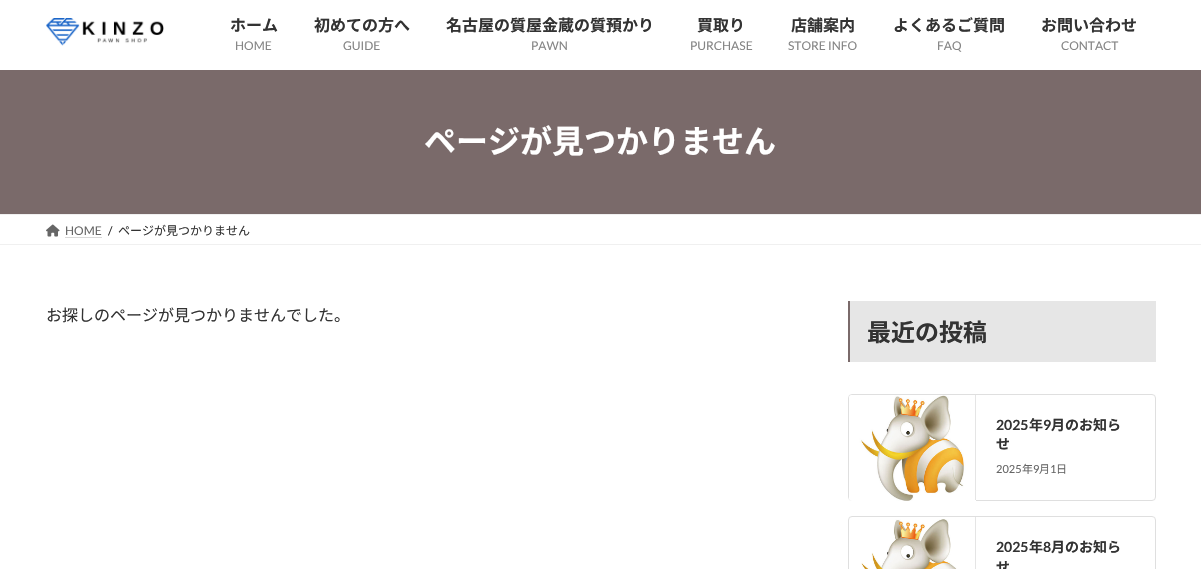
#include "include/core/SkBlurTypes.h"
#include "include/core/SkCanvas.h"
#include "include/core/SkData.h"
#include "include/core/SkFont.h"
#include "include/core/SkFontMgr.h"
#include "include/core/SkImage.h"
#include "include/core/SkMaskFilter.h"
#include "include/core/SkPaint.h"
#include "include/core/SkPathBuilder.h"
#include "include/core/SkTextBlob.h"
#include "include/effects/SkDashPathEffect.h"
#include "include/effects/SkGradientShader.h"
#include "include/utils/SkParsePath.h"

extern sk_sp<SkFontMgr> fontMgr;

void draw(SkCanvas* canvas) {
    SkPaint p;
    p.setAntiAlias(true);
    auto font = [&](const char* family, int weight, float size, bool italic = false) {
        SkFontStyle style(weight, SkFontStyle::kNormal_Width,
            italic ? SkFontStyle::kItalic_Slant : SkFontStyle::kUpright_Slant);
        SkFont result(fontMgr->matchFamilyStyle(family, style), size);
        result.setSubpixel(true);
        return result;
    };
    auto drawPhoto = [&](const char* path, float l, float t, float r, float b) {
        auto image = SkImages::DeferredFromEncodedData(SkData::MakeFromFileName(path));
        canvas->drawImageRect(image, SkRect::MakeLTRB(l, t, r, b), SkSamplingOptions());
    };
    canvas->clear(0xFFFFFFFF);
    drawPhoto("media/1.png", 46, 18, 164, 46);
    auto font1 = font("Noto Sans JP", 700, 16);
    p.setColor(0xFF333333);
    canvas->drawString("ホーム", 230, 31, font1, p);
    auto font2 = font("Lato", 400, 12);
    p.setColor(0xFF858585);
    canvas->drawString("HOME", 235, 50, font2, p);
    p.setColor(0xFF333333);
    canvas->drawString("初めての方へ", 314, 31, font1, p);
    p.setColor(0xFF858585);
    canvas->drawString("GUIDE", 343, 50, font2, p);
    p.setColor(0xFF333333);
    canvas->drawString("名古屋の質屋金蔵の質預かり", 446, 31, font1, p);
    p.setColor(0xFF858585);
    canvas->drawString("PAWN", 531, 50, font2, p);
    p.setColor(0xFF333333);
    canvas->drawString("買取り", 697, 31, font1, p);
    p.setColor(0xFF858585);
    canvas->drawString("PURCHASE", 690, 50, font2, p);
    p.setColor(0xFF333333);
    canvas->drawString("店舗案内", 791, 31, font1, p);
    p.setColor(0xFF858585);
    canvas->drawString("STORE INFO", 788, 50, font2, p);
    p.setColor(0xFF333333);
    canvas->drawString("よくあるご質問", 893, 31, font1, p);
    p.setColor(0xFF858585);
    canvas->drawString("FAQ", 937, 50, font2, p);
    p.setColor(0xFF333333);
    canvas->drawString("お問い合わせ", 1041, 31, font1, p);
    p.setColor(0xFF858585);
    canvas->drawString("CONTACT", 1061, 50, font2, p);
    p.setColor(0xFF7A6A6A);
    canvas->drawRect(SkRect::MakeLTRB(0, 70, 1201, 214), p);
    auto font3 = font("Noto Sans JP", 700, 32);
    p.setColor(0xFFFFFFFF);
    canvas->drawString("ページが見つかりません", 424, 153, font3, p);
    p.setColor(0xFFF0F0F0);
    canvas->drawRect(SkRect::MakeLTRB(0, 214, 1201, 215), p);
    canvas->drawRect(SkRect::MakeLTRB(0, 244, 1201, 245), p);
    drawPhoto("media/2.png", 46, 224, 60, 237);
    p.setColor(0xFF666666);
    canvas->drawString("HOME", 65, 235, font2, p);
    p.setStyle(SkPaint::kStroke_Style);
    p.setStrokeWidth(1);
    p.setColor(0xFFB3B3B3);
    p.setPathEffect(SkDashPathEffect::Make({{1, 1}}, 0));
    canvas->drawPath(SkPathBuilder().moveTo(65.5f, 237.5f).lineTo(102, 237.5f).detach(), p);
    p.setPathEffect(nullptr);
    p.setStyle(SkPaint::kFill_Style);
    p.setColor(0xFF333333);
    canvas->drawString("/", 108, 235, font2, p);
    auto font4 = font("Noto Sans JP", 400, 12);
    canvas->drawString("ページが見つかりません", 118, 235, font4, p);
    auto font5 = font("Noto Sans JP", 400, 16);
    canvas->drawString("お探しのページが見つかりませんでした。", 46, 321, font5, p);
    p.setColor(0xFFE6E6E6);
    canvas->drawRect(SkRect::MakeLTRB(850, 301, 1156, 362), p);
    p.setColor(0xFF7A6A6A);
    canvas->drawRect(SkRect::MakeLTRB(848, 301, 850, 362), p);
    auto font6 = font("Noto Sans JP", 700, 24);
    p.setColor(0xFF333333);
    canvas->drawString("最近の投稿", 867, 341, font6, p);
    p.setStyle(SkPaint::kStroke_Style);
    p.setColor(0xFFDFDFDF);
    canvas->drawRoundRect(SkRect::MakeLTRB(848.5f, 394.5f, 1155.5f, 500.5f), 3.5f, 3.5f, p);
    drawPhoto("media/3.png", 849, 395, 976, 501);
    p.setStyle(SkPaint::kFill_Style);
    p.setColor(0xFFE5E5E5);
    canvas->drawRect(SkRect::MakeLTRB(975, 395, 976, 500), p);
    auto font7 = font("Lato", 700, 14);
    p.setColor(0xFF333333);
    canvas->drawString("2025", 996, 430, font7, p);
    auto font8 = font("Noto Sans JP", 700, 14);
    canvas->drawString("年", 1029, 430, font8, p);
    canvas->drawString("9", 1043, 430, font7, p);
    canvas->drawString("月のお知ら", 1051, 430, font8, p);
    canvas->drawString("せ", 996, 449, font8, p);
    auto font9 = font("Lato", 400, 11);
    p.setColor(0xFF666666);
    canvas->drawString("2025", 996, 473, font9, p);
    auto font10 = font("Noto Sans JP", 400, 11);
    canvas->drawString("年", 1022, 473, font10, p);
    canvas->drawString("9", 1033, 473, font9, p);
    canvas->drawString("月", 1039, 473, font10, p);
    canvas->drawString("1", 1050, 473, font9, p);
    canvas->drawString("日", 1056, 473, font10, p);
    p.setStyle(SkPaint::kStroke_Style);
    p.setColor(0xFFDFDFDF);
    canvas->drawRoundRect(SkRect::MakeLTRB(848.5f, 516.5f, 1155.5f, 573.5f), 3.5f, 3.5f, p);
    drawPhoto("media/4.png", 861, 519, 957, 569);
    p.setStyle(SkPaint::kFill_Style);
    p.setColor(0xFFE5E5E5);
    canvas->drawRect(SkRect::MakeLTRB(975, 517, 976, 569), p);
    p.setColor(0xFF333333);
    canvas->drawString("2025", 996, 552, font7, p);
    canvas->drawString("年", 1029, 552, font8, p);
    canvas->drawString("8", 1043, 552, font7, p);
    canvas->drawString("月のお知ら", 1051, 552, font8, p);
    canvas->drawString("せ", 996, 572, font8, p);
}
